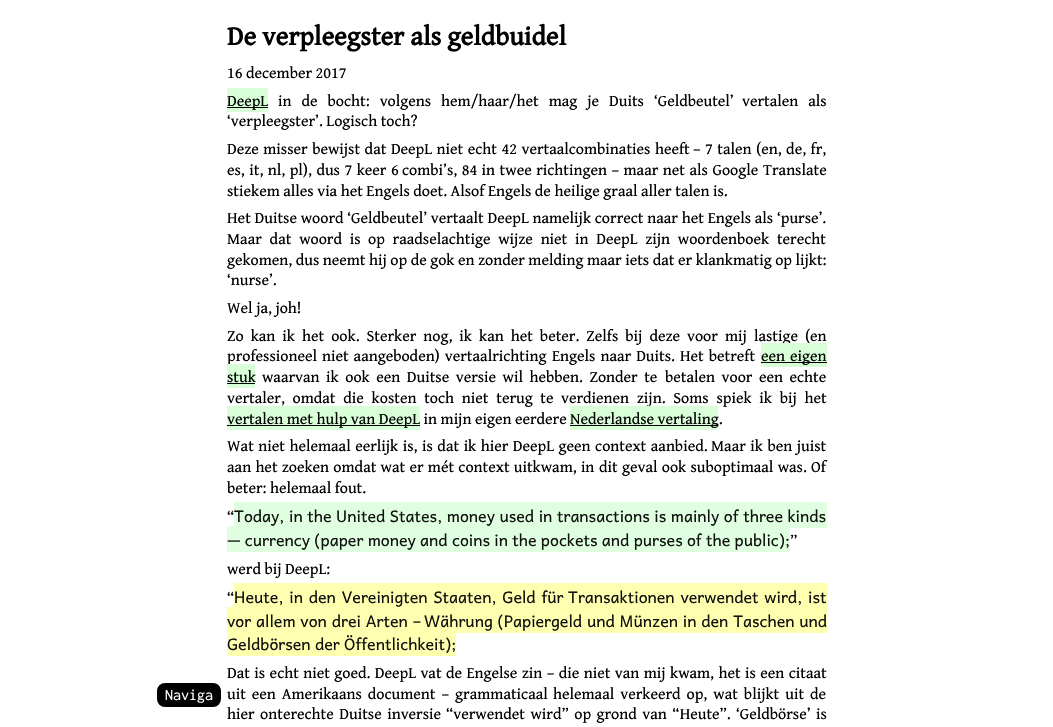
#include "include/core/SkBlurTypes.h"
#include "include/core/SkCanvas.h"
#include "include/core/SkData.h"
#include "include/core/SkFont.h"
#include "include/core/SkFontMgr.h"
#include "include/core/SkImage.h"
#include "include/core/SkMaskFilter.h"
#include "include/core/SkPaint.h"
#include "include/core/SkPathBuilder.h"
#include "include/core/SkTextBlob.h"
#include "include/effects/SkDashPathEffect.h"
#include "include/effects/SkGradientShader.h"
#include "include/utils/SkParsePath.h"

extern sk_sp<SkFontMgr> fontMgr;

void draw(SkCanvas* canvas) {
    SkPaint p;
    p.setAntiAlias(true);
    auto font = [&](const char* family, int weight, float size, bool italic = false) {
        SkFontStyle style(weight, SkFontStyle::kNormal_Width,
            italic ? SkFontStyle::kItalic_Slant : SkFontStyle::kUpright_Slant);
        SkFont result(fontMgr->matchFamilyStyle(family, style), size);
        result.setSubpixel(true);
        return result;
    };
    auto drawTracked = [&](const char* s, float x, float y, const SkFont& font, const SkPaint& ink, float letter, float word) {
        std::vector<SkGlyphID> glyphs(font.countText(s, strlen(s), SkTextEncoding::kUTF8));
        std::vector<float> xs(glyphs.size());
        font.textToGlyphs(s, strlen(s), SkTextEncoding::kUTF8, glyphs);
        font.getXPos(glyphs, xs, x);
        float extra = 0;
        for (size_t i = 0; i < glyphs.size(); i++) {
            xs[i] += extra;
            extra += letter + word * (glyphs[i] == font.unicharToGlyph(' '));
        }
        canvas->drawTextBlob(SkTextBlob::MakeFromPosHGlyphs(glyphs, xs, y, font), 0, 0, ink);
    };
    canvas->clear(0xFFFFFFFF);
    p.setColor(0xFF000000);
    canvas->drawRoundRect(SkRect::MakeLTRB(158, 684, 220, 706), 7, 7, p);
    p.setStyle(SkPaint::kStroke_Style);
    p.setStrokeWidth(2);
    canvas->drawRoundRect(SkRect::MakeLTRB(158, 684, 220, 706), 7, 7, p);
    auto font1 = font("Inconsolata", 400, 16);
    p.setStyle(SkPaint::kFill_Style);
    p.setColor(0xFFFFFFFF);
    canvas->drawString("Naviga", 165, 700, font1, p);
    auto font2 = font("Gentium Book Plus", 700, 27);
    p.setColor(0xFF000000);
    canvas->drawString("De verpleegster als geldbuidel", 227, 45, font2, p);
    auto font3 = font("Gentium Book Plus", 400, 16);
    canvas->drawString("16 december 2017", 227, 78, font3, p);
    p.setColor(0xFFD8FFD8);
    canvas->drawRect(SkRect::MakeLTRB(227, 88, 268, 112), p);
    p.setColor(0xFF000000);
    canvas->drawRect(SkRect::MakeLTRB(227, 107, 268, 108), p);
    canvas->drawString("DeepL", 227, 106, font3, p);
    drawTracked("in de bocht: volgens hem/haar/het mag je Duits ‘Geldbeutel’", 278, 106, font3, p, 0, 6.5f);
    drawTracked("vertalen als", 742, 106, font3, p, 0, 6.5f);
    canvas->drawString("‘verpleegster’. Logisch toch?", 227, 126, font3, p);
    {
        const struct { const char* s; float x, y; } items[] = {
            {"Deze misser bewijst dat DeepL niet echt 42 vertaalcombinaties heeft", 227, 154},
            {"– 7 talen (en, de, fr,", 693, 154},
            {"es, it, nl, pl), dus 7 keer 6", 227, 175},
            {"combi’s, 84 in twee richtingen – maar net als Google", 402, 175},
        };
        for (auto [s, x, y] : items) {
            drawTracked(s, x, y, font3, p, 0, 1);
        }
    }
    canvas->drawString("Translate", 763, 175, font3, p);
    canvas->drawString("stiekem alles via het Engels doet. Alsof Engels de heilige graal aller talen is.", 227, 196, font3, p);
    drawTracked("Het Duitse woord ‘Geldbeutel’ vertaalt DeepL namelijk correct naar het Engels als ‘purse’.", 227, 223, font3, p, 0, 0.25f);
    drawTracked("Maar dat woord is", 227, 244, font3, p, 0, 4.25f);
    drawTracked("op raadselachtige wijze niet in DeepL zijn woordenboek terecht", 368, 244, font3, p, 0, 4.25f);
    {
        const struct { const char* s; float x, y; } items[] = {
            {"gekomen, dus neemt hij op de gok en zonder melding maar iets dat er klankmatig op lijkt:", 227, 265},
            {"‘nurse’.", 227, 285},
            {"Wel ja, joh!", 227, 313},
        };
        for (auto [s, x, y] : items) {
            canvas->drawString(s, x, y, font3, p);
        }
    }
    drawTracked("Zo kan ik het ook. Sterker nog, ik kan het beter. Zelfs bij deze voor", 227, 341, font3, p, 0, 3.5f);
    drawTracked("mij lastige (en", 725, 341, font3, p, 0, 3.5f);
    drawTracked("professioneel niet aangeboden) vertaalrichting", 227, 361, font3, p, 0, 1.5f);
    drawTracked("Engels naar Duits. Het betreft", 552, 361, font3, p, 0, 1.5f);
    p.setColor(0xFFD8FFD8);
    canvas->drawRect(SkRect::MakeLTRB(761, 343, 827, 367), p);
    p.setColor(0xFF000000);
    canvas->drawString("een", 761, 361, font3, p);
    canvas->drawRect(SkRect::MakeLTRB(761, 362, 827, 363), p);
    canvas->drawString("eigen", 790, 361, font3, p);
    p.setColor(0xFFD8FFD8);
    canvas->drawRect(SkRect::MakeLTRB(227, 364, 255, 388), p);
    p.setColor(0xFF000000);
    canvas->drawString("stuk", 227, 382, font3, p);
    canvas->drawRect(SkRect::MakeLTRB(227, 383, 255, 384), p);
    drawTracked("waarvan ik ook een Duitse versie wil hebben. Zonder te", 262, 382, font3, p, 0, 3);
    drawTracked("betalen voor een echte", 665, 382, font3, p, 0, 3);
    drawTracked("vertaler, omdat die kosten toch niet terug te", 227, 403, font3, p, 0, 4.25f);
    drawTracked("verdienen zijn. Soms spiek ik bij het", 561, 403, font3, p, 0, 4.25f);
    p.setColor(0xFFD8FFD8);
    canvas->drawRect(SkRect::MakeLTRB(227, 406, 420, 430), p);
    p.setColor(0xFF000000);
    canvas->drawRect(SkRect::MakeLTRB(227, 425, 420, 426), p);
    canvas->drawString("vertalen met hulp van DeepL in mijn eigen eerdere", 227, 424, font3, p);
    p.setColor(0xFFD8FFD8);
    canvas->drawRect(SkRect::MakeLTRB(570, 406, 718, 430), p);
    p.setColor(0xFF000000);
    canvas->drawRect(SkRect::MakeLTRB(570, 425, 718, 426), p);
    canvas->drawString("Nederlandse vertaling.", 570, 424, font3, p);
    drawTracked("Wat niet helemaal eerlijk is, is dat ik hier DeepL geen context aanbied.", 227, 451, font3, p, 0, 1);
    drawTracked("Maar ik ben juist", 711, 451, font3, p, 0, 1);
    drawTracked("aan het zoeken omdat wat er mét context uitkwam, in", 227, 472, font3, p, 0, 0.75f);
    drawTracked("dit geval ook suboptimaal was. Of", 599, 472, font3, p, 0, 0.75f);
    canvas->drawString("beter: helemaal fout.", 227, 493, font3, p);
    canvas->drawString("“", 227, 522, font3, p);
    p.setColor(0xFFE0FFE0);
    canvas->drawRect(SkRect::MakeLTRB(234, 502, 827, 528), p);
    auto font4 = font("Andika", 400, 16);
    p.setColor(0xFF101010);
    drawTracked("Today, in the United States, money used in transactions is mainly of three kinds", 234, 522, font4, p, 0, 0.25f);
    p.setColor(0xFFE0FFE0);
    canvas->drawRect(SkRect::MakeLTRB(227, 526, 790, 552), p);
    p.setColor(0xFF101010);
    canvas->drawString("— currency (paper money and coins in the pockets and purses of the public);", 227, 546, font4, p);
    p.setColor(0xFF000000);
    {
        const struct { const char* s; float x, y; } items[] = {
            {"”", 790, 546},
            {"werd bij DeepL:", 227, 574},
            {"“", 227, 603},
        };
        for (auto [s, x, y] : items) {
            canvas->drawString(s, x, y, font3, p);
        }
    }
    p.setColor(0xFFFFFFB0);
    canvas->drawRect(SkRect::MakeLTRB(234, 583, 827, 607), p);
    p.setColor(0xFF101010);
    drawTracked("Heute, in den Vereinigten Staaten, Geld für", 234, 603, font4, p, 0, 1.5f);
    drawTracked("Transaktionen verwendet wird, ist", 568, 603, font4, p, 0, 1.5f);
    p.setColor(0xFFFFFFB0);
    canvas->drawRect(SkRect::MakeLTRB(227, 607, 827, 633), p);
    p.setColor(0xFF101010);
    drawTracked("vor allem von drei Arten –", 227, 627, font4, p, 0, 0.5f);
    drawTracked("Währung (Papiergeld und Münzen in den Taschen und", 424, 627, font4, p, 0, 0.5f);
    p.setColor(0xFFFFFFB0);
    canvas->drawRect(SkRect::MakeLTRB(227, 633, 456, 656), p);
    p.setColor(0xFF101010);
    canvas->drawString("Geldbörsen der Öffentlichkeit);", 227, 650, font4, p);
    p.setColor(0xFF000000);
    drawTracked("Dat is echt niet goed. DeepL vat de Engelse zin – die niet van mij", 227, 678, font3, p, 0, 0.9f);
    drawTracked("kwam, het is een citaat", 670, 678, font3, p, 0, 0.9f);
    drawTracked("uit een Amerikaans document – grammaticaal", 227, 699, font3, p, 0, 2.5f);
    drawTracked("helemaal verkeerd op, wat blijkt uit de", 553, 699, font3, p, 0, 2.5f);
    {
        const struct { const char* s; float x, y; } items[] = {
            {"hier onterechte Duitse inversie", 227, 719},
            {"“verwendet wird” op grond van “Heute”.", 446, 719},
            {"‘Geldbörse’ is", 736, 719},
        };
        for (auto [s, x, y] : items) {
            drawTracked(s, x, y, font3, p, 0, 2);
        }
    }
}
